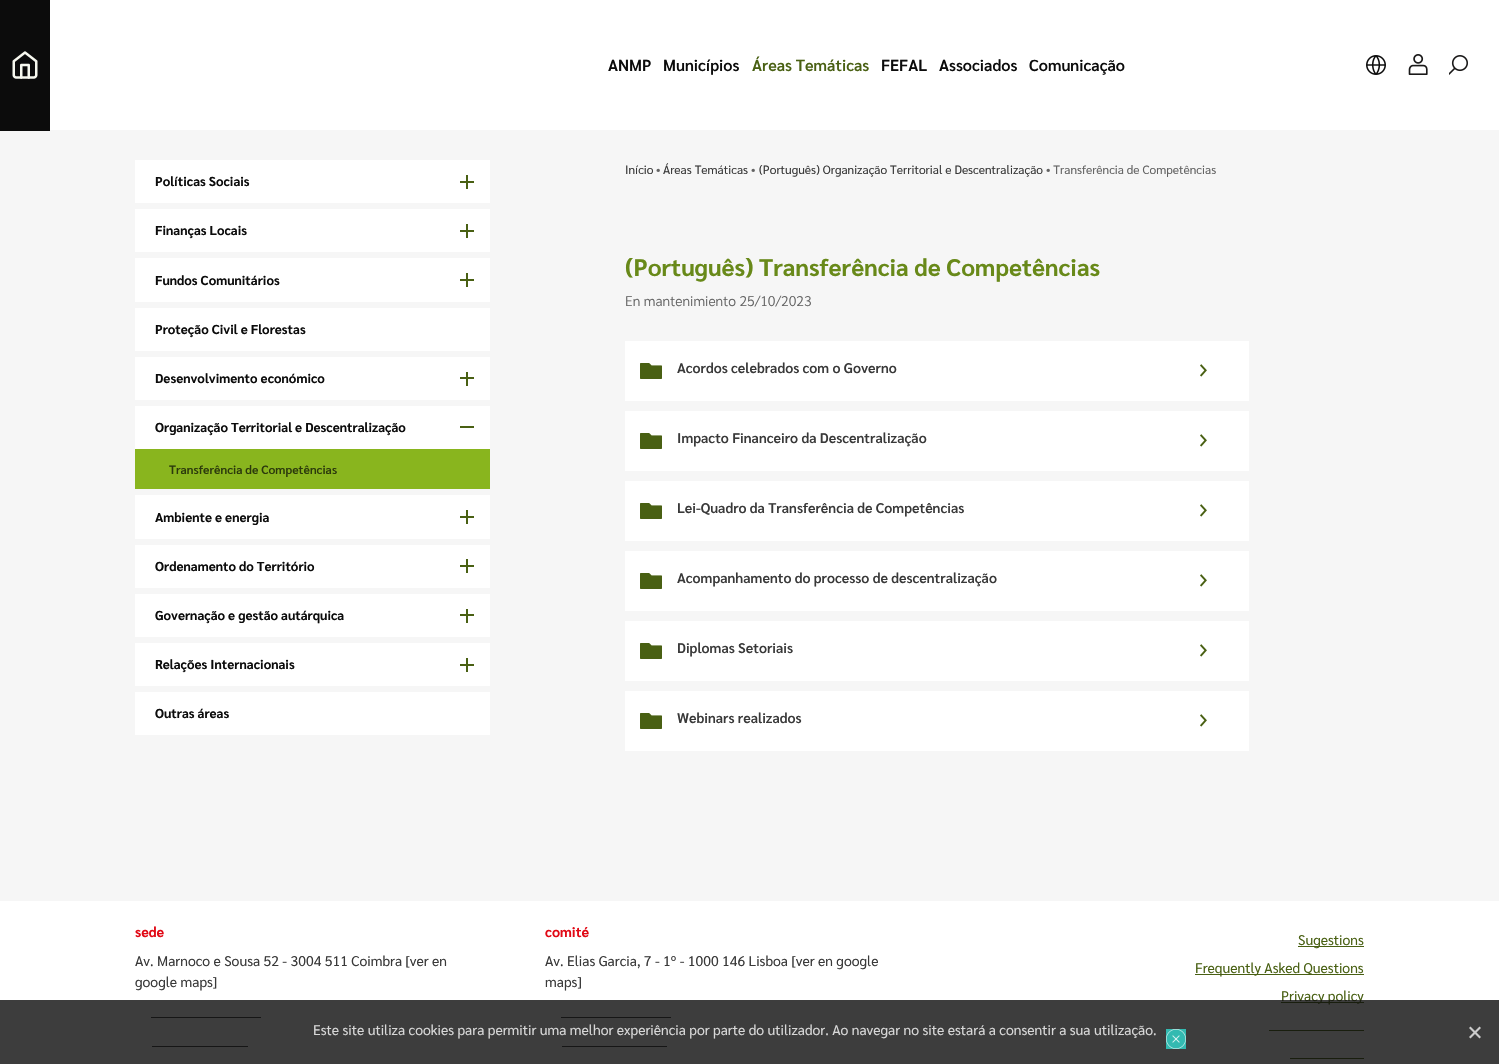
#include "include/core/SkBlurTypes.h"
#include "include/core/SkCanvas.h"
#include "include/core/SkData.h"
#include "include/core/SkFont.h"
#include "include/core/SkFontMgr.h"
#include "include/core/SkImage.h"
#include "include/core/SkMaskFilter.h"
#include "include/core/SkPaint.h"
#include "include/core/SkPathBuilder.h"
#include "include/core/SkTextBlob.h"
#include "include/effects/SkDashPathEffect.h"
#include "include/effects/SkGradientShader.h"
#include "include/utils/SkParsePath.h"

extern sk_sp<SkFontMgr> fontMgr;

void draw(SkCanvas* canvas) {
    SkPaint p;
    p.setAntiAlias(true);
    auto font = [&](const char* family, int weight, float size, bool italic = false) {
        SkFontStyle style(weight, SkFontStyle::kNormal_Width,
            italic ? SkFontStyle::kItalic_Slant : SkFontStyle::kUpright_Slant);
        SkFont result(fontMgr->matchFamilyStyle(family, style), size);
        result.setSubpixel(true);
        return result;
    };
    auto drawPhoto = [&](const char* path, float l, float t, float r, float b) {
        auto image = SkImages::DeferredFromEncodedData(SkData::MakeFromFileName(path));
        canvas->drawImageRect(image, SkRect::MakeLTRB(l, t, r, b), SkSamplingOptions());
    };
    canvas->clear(0xFFFFFFFF);
    p.setColor(0xFFF6F6F6);
    canvas->drawRect(SkRect::MakeLTRB(0, 130, 1499, 901), p);
    p.setColor(0xFF0C0C0C);
    canvas->drawRect(SkRect::MakeLTRB(0, 0, 50, 131), p);
    drawPhoto("media/1.png", 12, 51, 38, 79);
    auto font1 = font("Sarabun", 600, 16);
    canvas->drawString("ANMP", 608, 71, font1, p);
    canvas->drawString("Municípios", 663, 71, font1, p);
    p.setColor(0xFF496013);
    canvas->drawString("Áreas Temáticas", 752, 71, font1, p);
    p.setColor(0xFF0C0C0C);
    {
        const struct { const char* s; float x, y; } items[] = {
            {"FEFAL", 881, 71},
            {"Associados", 939, 71},
            {"Comunicação", 1029, 71},
        };
        for (auto [s, x, y] : items) {
            canvas->drawString(s, x, y, font1, p);
        }
    }
    drawPhoto("media/2.png", 1366, 55, 1386, 75);
    drawPhoto("media/3.png", 1408, 54, 1428, 75);
    drawPhoto("media/4.png", 1449, 55, 1468, 75);
    p.setColor(0xFFFFFFFF);
    canvas->drawRect(SkRect::MakeLTRB(135, 160, 490, 203), p);
    auto font2 = font("Sarabun", 700, 13);
    p.setColor(0xFF0C0C0C);
    canvas->drawString("Políticas Sociais", 155, 186, font2, p);
    {
        const struct { float l, t, r, b; SkColor color; } items[] = {
            {460, 181, 474, 183, 0xFF496013},
            {466, 175, 468, 189, 0xFF496013},
            {135, 209, 490, 252, 0xFFFFFFFF},
        };
        for (auto [l, t, r, b, color] : items) {
            p.setColor(color);
            canvas->drawRect(SkRect::MakeLTRB(l, t, r, b), p);
        }
    }
    p.setColor(0xFF0C0C0C);
    canvas->drawString("Finanças Locais", 155, 235, font2, p);
    {
        const struct { float l, t, r, b; SkColor color; } items[] = {
            {460, 230, 474, 232, 0xFF496013},
            {466, 224, 468, 238, 0xFF496013},
            {135, 258, 490, 302, 0xFFFFFFFF},
        };
        for (auto [l, t, r, b, color] : items) {
            p.setColor(color);
            canvas->drawRect(SkRect::MakeLTRB(l, t, r, b), p);
        }
    }
    p.setColor(0xFF0C0C0C);
    canvas->drawString("Fundos Comunitários", 155, 285, font2, p);
    {
        const struct { float l, t, r, b; SkColor color; } items[] = {
            {460, 279, 474, 281, 0xFF496013},
            {466, 273, 468, 287, 0xFF496013},
            {135, 308, 490, 351, 0xFFFFFFFF},
        };
        for (auto [l, t, r, b, color] : items) {
            p.setColor(color);
            canvas->drawRect(SkRect::MakeLTRB(l, t, r, b), p);
        }
    }
    p.setColor(0xFF0C0C0C);
    canvas->drawString("Proteção Civil e Florestas", 155, 334, font2, p);
    p.setColor(0xFFFFFFFF);
    canvas->drawRect(SkRect::MakeLTRB(135, 357, 490, 400), p);
    p.setColor(0xFF0C0C0C);
    canvas->drawString("Desenvolvimento económico", 155, 383, font2, p);
    {
        const struct { float l, t, r, b; SkColor color; } items[] = {
            {460, 377, 474, 379, 0xFF496013},
            {466, 372, 468, 386, 0xFF496013},
            {135, 406, 490, 449, 0xFFFFFFFF},
        };
        for (auto [l, t, r, b, color] : items) {
            p.setColor(color);
            canvas->drawRect(SkRect::MakeLTRB(l, t, r, b), p);
        }
    }
    p.setColor(0xFF0C0C0C);
    canvas->drawString("Organização Territorial e Descentralização", 155, 432, font2, p);
    p.setColor(0xFF496013);
    canvas->drawRect(SkRect::MakeLTRB(460, 426, 474, 428), p);
    p.setColor(0xFF89B51E);
    canvas->drawRect(SkRect::MakeLTRB(135, 449, 490, 489), p);
    auto font3 = font("Sarabun", 600, 12);
    p.setColor(0xFF2C3A0C);
    canvas->drawString("Transferência de Competências", 169, 474, font3, p);
    p.setColor(0xFFFFFFFF);
    canvas->drawRect(SkRect::MakeLTRB(135, 495, 490, 539), p);
    p.setColor(0xFF0C0C0C);
    canvas->drawString("Ambiente e energia", 155, 522, font2, p);
    {
        const struct { float l, t, r, b; SkColor color; } items[] = {
            {460, 516, 474, 518, 0xFF496013},
            {466, 510, 468, 524, 0xFF496013},
            {135, 545, 490, 588, 0xFFFFFFFF},
        };
        for (auto [l, t, r, b, color] : items) {
            p.setColor(color);
            canvas->drawRect(SkRect::MakeLTRB(l, t, r, b), p);
        }
    }
    p.setColor(0xFF0C0C0C);
    canvas->drawString("Ordenamento do Território", 155, 571, font2, p);
    {
        const struct { float l, t, r, b; SkColor color; } items[] = {
            {460, 565, 474, 567, 0xFF496013},
            {466, 559, 468, 573, 0xFF496013},
            {135, 594, 490, 637, 0xFFFFFFFF},
        };
        for (auto [l, t, r, b, color] : items) {
            p.setColor(color);
            canvas->drawRect(SkRect::MakeLTRB(l, t, r, b), p);
        }
    }
    p.setColor(0xFF0C0C0C);
    canvas->drawString("Governação e gestão autárquica", 155, 620, font2, p);
    {
        const struct { float l, t, r, b; SkColor color; } items[] = {
            {460, 614, 474, 616, 0xFF496013},
            {466, 609, 468, 623, 0xFF496013},
            {135, 643, 490, 686, 0xFFFFFFFF},
        };
        for (auto [l, t, r, b, color] : items) {
            p.setColor(color);
            canvas->drawRect(SkRect::MakeLTRB(l, t, r, b), p);
        }
    }
    p.setColor(0xFF0C0C0C);
    canvas->drawString("Relações Internacionais", 155, 669, font2, p);
    {
        const struct { float l, t, r, b; SkColor color; } items[] = {
            {460, 664, 474, 666, 0xFF496013},
            {466, 658, 468, 672, 0xFF496013},
            {135, 692, 490, 735, 0xFFFFFFFF},
        };
        for (auto [l, t, r, b, color] : items) {
            p.setColor(color);
            canvas->drawRect(SkRect::MakeLTRB(l, t, r, b), p);
        }
    }
    p.setColor(0xFF0C0C0C);
    canvas->drawString("Outras áreas", 155, 718, font2, p);
    auto font4 = font("Sarabun", 400, 12);
    p.setColor(0xFF393939);
    canvas->drawString("Início", 625, 174, font4, p);
    p.setColor(0xFF636363);
    canvas->drawString("•", 656, 174, font4, p);
    p.setColor(0xFF393939);
    canvas->drawString("Áreas Temáticas", 663, 174, font4, p);
    p.setColor(0xFF636363);
    canvas->drawString("•", 751, 174, font4, p);
    p.setColor(0xFF393939);
    canvas->drawString("(Português) Organização Territorial e Descentralização", 759, 174, font4, p);
    p.setColor(0xFF636363);
    canvas->drawString("• Transferência de Competências", 1046, 174, font4, p);
    auto font5 = font("Sarabun", 700, 24);
    p.setColor(0xFF688919);
    canvas->drawString("(Português) Transferência de Competências", 625, 276, font5, p);
    auto font6 = font("Sarabun", 300, 14);
    p.setColor(0xFF636363);
    canvas->drawString("En mantenimiento 25/10/2023", 625, 306, font6, p);
    p.setColor(0xFFFFFFFF);
    canvas->drawRect(SkRect::MakeLTRB(625, 341, 1249, 401), p);
    drawPhoto("media/5.png", 640, 363, 662, 379);
    auto font7 = font("Sarabun", 600, 14);
    p.setColor(0xFF393939);
    canvas->drawString("Acordos celebrados com o Governo", 677, 373, font7, p);
    drawPhoto("media/6.png", 1200, 364, 1207, 377);
    p.setColor(0xFFFFFFFF);
    canvas->drawRect(SkRect::MakeLTRB(625, 411, 1249, 471), p);
    drawPhoto("media/5.png", 640, 433, 662, 449);
    p.setColor(0xFF393939);
    canvas->drawString("Impacto Financeiro da Descentralização", 677, 443, font7, p);
    drawPhoto("media/6.png", 1200, 434, 1207, 447);
    p.setColor(0xFFFFFFFF);
    canvas->drawRect(SkRect::MakeLTRB(625, 481, 1249, 541), p);
    drawPhoto("media/5.png", 640, 503, 662, 519);
    p.setColor(0xFF393939);
    canvas->drawString("Lei-Quadro da Transferência de Competências", 677, 513, font7, p);
    drawPhoto("media/6.png", 1200, 504, 1207, 517);
    p.setColor(0xFFFFFFFF);
    canvas->drawRect(SkRect::MakeLTRB(625, 551, 1249, 611), p);
    drawPhoto("media/5.png", 640, 573, 662, 589);
    p.setColor(0xFF393939);
    canvas->drawString("Acompanhamento do processo de descentralização", 677, 583, font7, p);
    drawPhoto("media/6.png", 1200, 574, 1207, 587);
    p.setColor(0xFFFFFFFF);
    canvas->drawRect(SkRect::MakeLTRB(625, 621, 1249, 681), p);
    drawPhoto("media/5.png", 640, 643, 662, 659);
    p.setColor(0xFF393939);
    canvas->drawString("Diplomas Setoriais", 677, 653, font7, p);
    drawPhoto("media/6.png", 1200, 644, 1207, 657);
    p.setColor(0xFFFFFFFF);
    canvas->drawRect(SkRect::MakeLTRB(625, 691, 1249, 751), p);
    drawPhoto("media/5.png", 640, 713, 662, 729);
    p.setColor(0xFF393939);
    canvas->drawString("Webinars realizados", 677, 723, font7, p);
    drawPhoto("media/6.png", 1200, 714, 1207, 727);
    auto font8 = font("Sarabun", 700, 14);
    p.setColor(0xFFE10915);
    canvas->drawString("sede", 135, 937, font8, p);
    auto font9 = font("Sarabun", 400, 14);
    p.setColor(0xFF393939);
    canvas->drawString("Av. Marnoco e Sousa 52 - 3004 511 Coimbra [ver en", 135, 966, font9, p);
    canvas->drawString("google maps]", 135, 987, font9, p);
    canvas->drawRect(SkRect::MakeLTRB(151, 1017, 261, 1018), p);
    canvas->drawRect(SkRect::MakeLTRB(152, 1046, 248, 1047), p);
    p.setColor(0xFFE10915);
    canvas->drawString("comité", 545, 937, font8, p);
    p.setColor(0xFF393939);
    canvas->drawString("Av. Elias Garcia, 7 - 1º - 1000 146 Lisboa [ver en google", 545, 966, font9, p);
    canvas->drawString("maps]", 545, 987, font9, p);
    {
        const struct { float l, t, r, b; SkColor color; } items[] = {
            {561, 1017, 671, 1018, 0xFF393939},
            {562, 1046, 667, 1047, 0xFF393939},
            {1298, 946, 1364, 947, 0xFF496013},
        };
        for (auto [l, t, r, b, color] : items) {
            p.setColor(color);
            canvas->drawRect(SkRect::MakeLTRB(l, t, r, b), p);
        }
    }
    canvas->drawString("Sugestions", 1298, 945, font9, p);
    canvas->drawRect(SkRect::MakeLTRB(1195, 974, 1364, 975), p);
    canvas->drawString("Frequently Asked Questions", 1195, 973, font9, p);
    canvas->drawRect(SkRect::MakeLTRB(1281, 1002, 1364, 1003), p);
    canvas->drawString("Privacy policy", 1281, 1001, font9, p);
    {
        const struct { float l, t, r, b; SkColor color; } items[] = {
            {1269, 1030, 1364, 1031, 0xFF496013},
            {1290, 1058, 1364, 1059, 0xFF496013},
            {0, 1000, 1499, 1064, 0xCC0C0C0C},
        };
        for (auto [l, t, r, b, color] : items) {
            p.setColor(color);
            canvas->drawRect(SkRect::MakeLTRB(l, t, r, b), p);
        }
    }
    p.setColor(0xFFD8D8D8);
    canvas->drawString("Este site utiliza cookies para permitir uma melhor experiência por parte do utilizador. Ao navegar no site estará a consentir a sua utilização.", 313, 1035, font9, p);
    p.setColor(0xFF33BAB1);
    canvas->drawRect(SkRect::MakeLTRB(1166, 1029, 1186, 1049), p);
    drawPhoto("media/7.png", 1166, 1029, 1186, 1049);
    p.setColor(0xFFCCCCCC);
    canvas->drawPath(SkPathBuilder().moveTo(1479.5f, 1026.5f).lineTo(1481, 1028).lineTo(1470.5f, 1038.5f).lineTo(1469, 1037).close().detach(), p);
    canvas->drawPath(SkPathBuilder().moveTo(1469, 1028).lineTo(1470.5f, 1026.5f).lineTo(1481, 1037).lineTo(1479.5f, 1038.5f).close().detach(), p);
}
